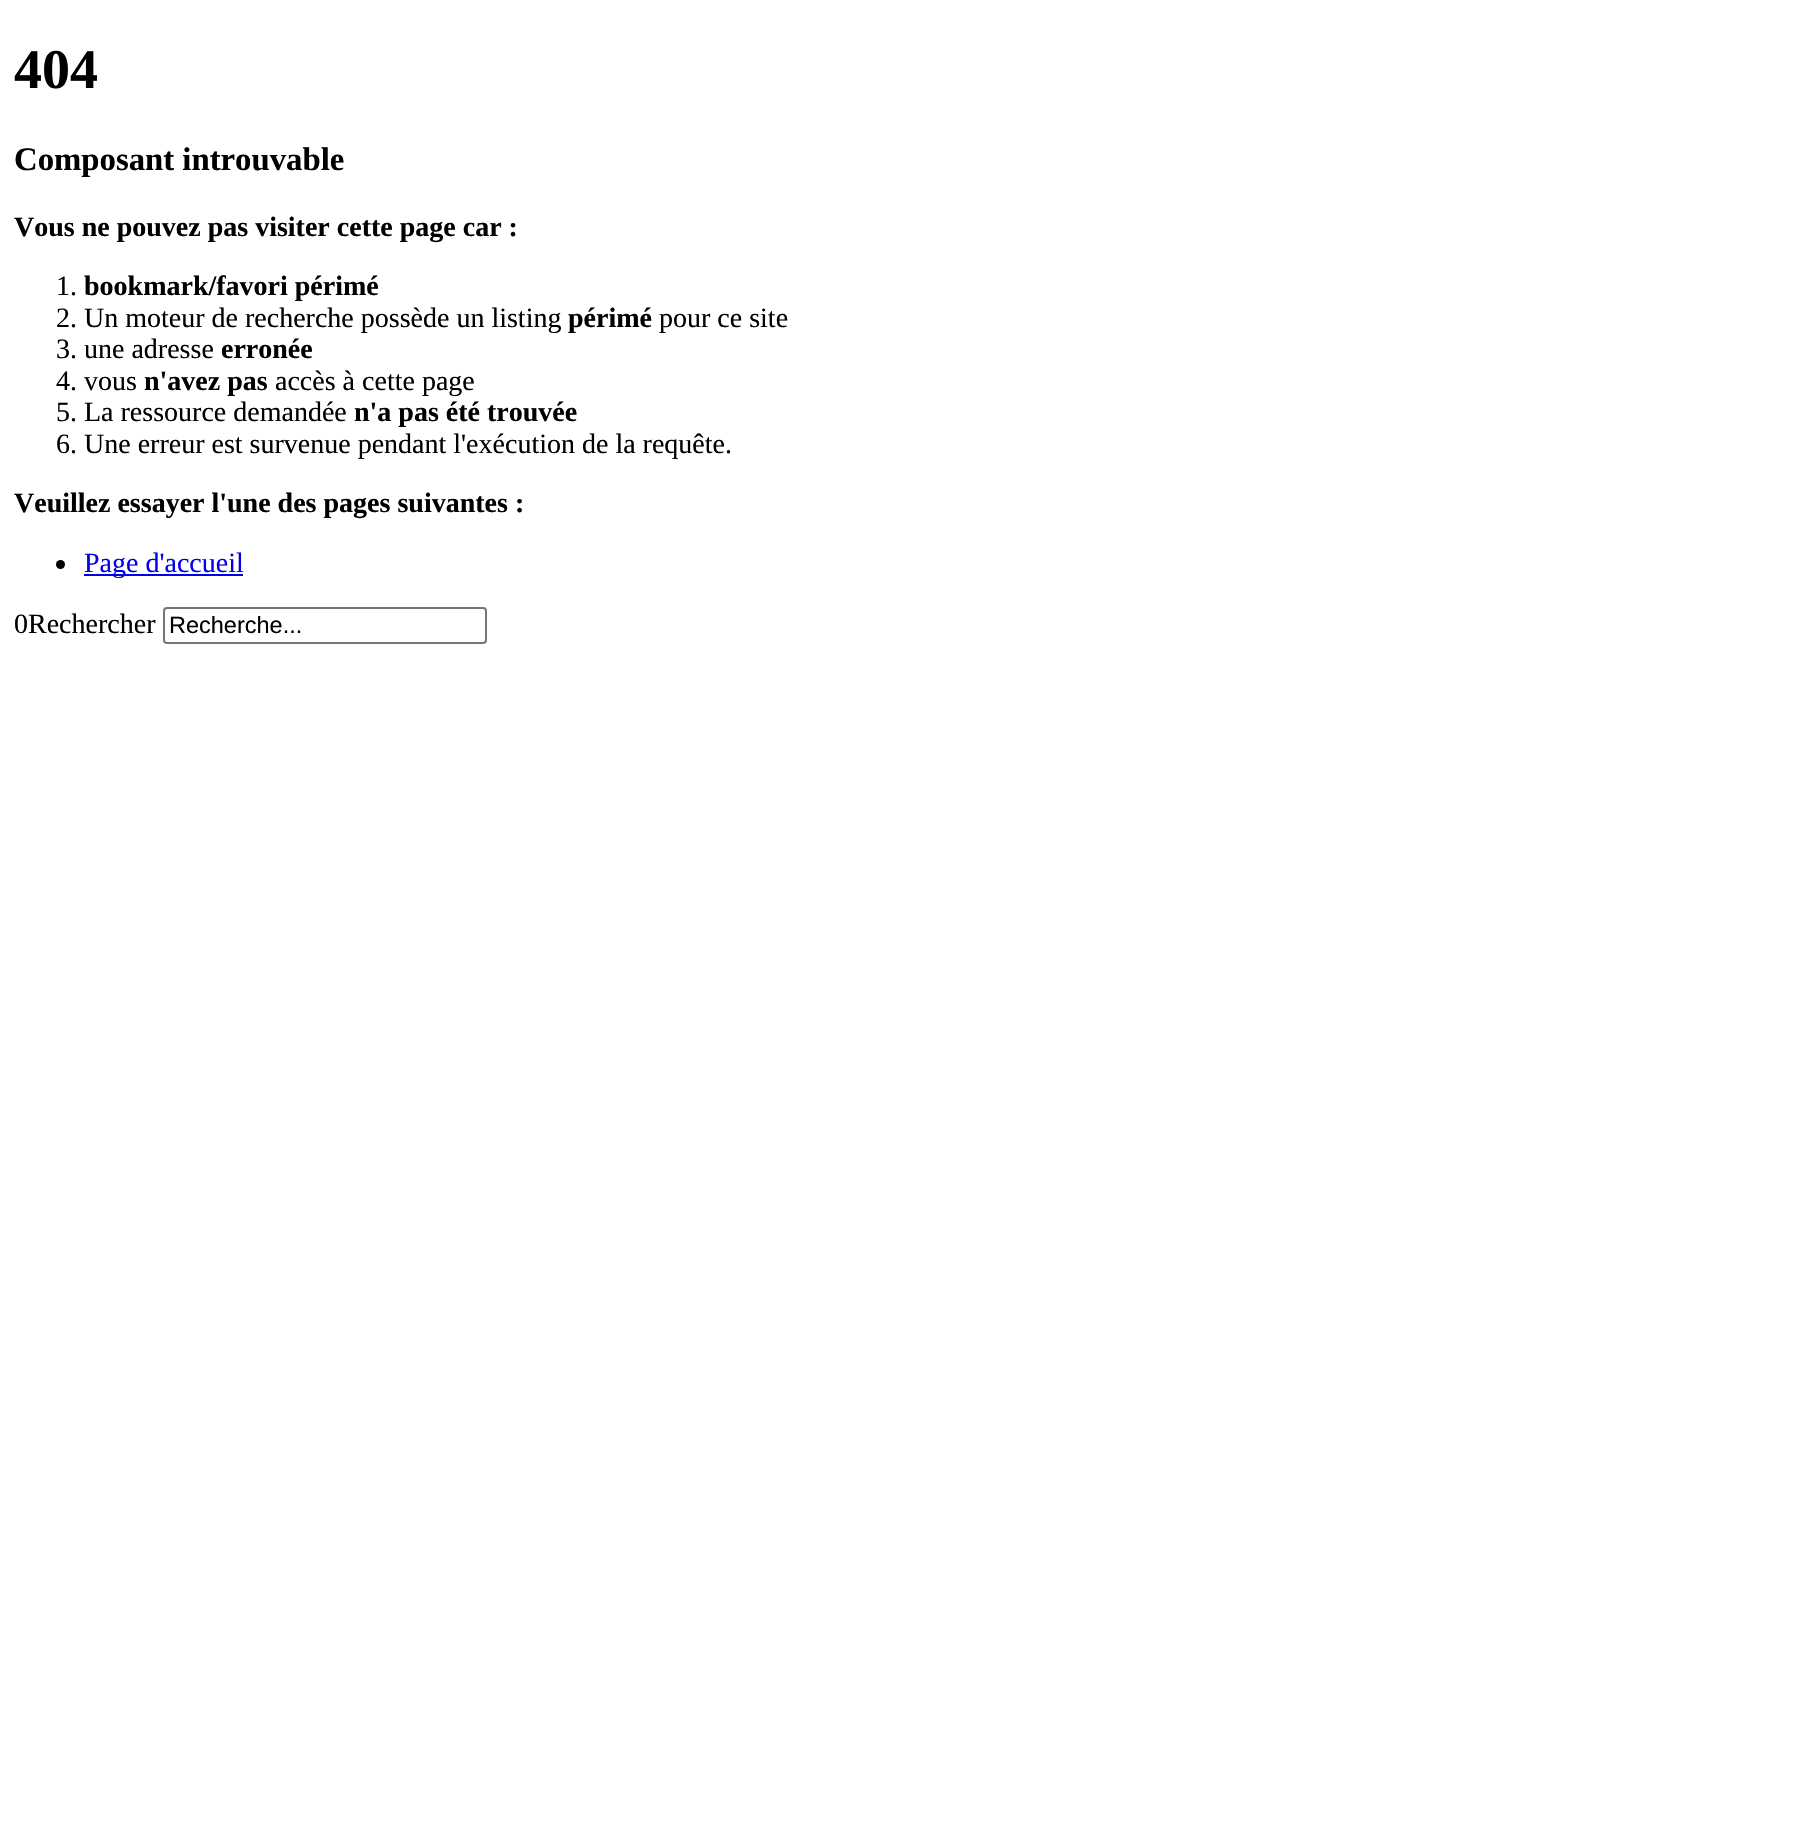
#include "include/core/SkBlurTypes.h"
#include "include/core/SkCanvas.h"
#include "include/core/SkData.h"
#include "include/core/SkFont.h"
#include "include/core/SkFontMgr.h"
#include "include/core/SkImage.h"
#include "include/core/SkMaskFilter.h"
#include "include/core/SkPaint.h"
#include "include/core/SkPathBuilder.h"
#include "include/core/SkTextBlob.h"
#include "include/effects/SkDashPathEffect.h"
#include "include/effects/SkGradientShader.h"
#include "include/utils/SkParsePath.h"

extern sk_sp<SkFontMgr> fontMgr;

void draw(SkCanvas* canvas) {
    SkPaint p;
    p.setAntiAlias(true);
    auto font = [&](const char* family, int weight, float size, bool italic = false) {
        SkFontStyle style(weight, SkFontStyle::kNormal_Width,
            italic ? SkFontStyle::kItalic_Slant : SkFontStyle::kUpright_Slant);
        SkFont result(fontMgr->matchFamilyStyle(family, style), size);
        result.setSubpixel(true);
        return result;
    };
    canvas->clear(0xFFFFFFFF);
    auto font1 = font("Liberation Serif", 700, 56);
    p.setColor(0xFF000000);
    canvas->drawString("404", 14, 88, font1, p);
    auto font2 = font("Liberation Serif", 700, 32.75f);
    canvas->drawString("Composant introuvable", 14, 170, font2, p);
    auto font3 = font("Liberation Serif", 700, 28);
    canvas->drawString("Vous ne pouvez pas visiter cette page car :", 14, 236, font3, p);
    auto font4 = font("Liberation Serif", 400, 28);
    canvas->drawString("1.", 56, 295, font4, p);
    canvas->drawString("bookmark/favori périmé", 84, 295, font3, p);
    canvas->drawString("2. Un moteur de recherche possède un listing", 56, 327, font4, p);
    canvas->drawString("périmé", 568, 327, font3, p);
    canvas->drawString("pour ce site", 659, 327, font4, p);
    canvas->drawString("3. une adresse", 56, 358, font4, p);
    canvas->drawString("erronée", 221, 358, font3, p);
    canvas->drawString("4. vous", 56, 390, font4, p);
    canvas->drawString("n'avez pas", 144, 390, font3, p);
    canvas->drawString("accès à cette page", 275, 390, font4, p);
    canvas->drawString("5. La ressource demandée", 56, 421, font4, p);
    canvas->drawString("n'a pas été trouvée", 354, 421, font3, p);
    canvas->drawString("6. Une erreur est survenue pendant l'exécution de la requête.", 56, 453, font4, p);
    canvas->drawString("Veuillez essayer l'une des pages suivantes :", 14, 512, font3, p);
    canvas->drawCircle(60.5f, 564.5f, 4.5f, p);
    p.setColor(0xFF0000EE);
    canvas->drawRect(SkRect::MakeLTRB(84, 574, 243, 576), p);
    canvas->drawString("Page d'accueil", 84, 572, font4, p);
    p.setColor(0xFF000000);
    canvas->drawString("0Rechercher", 14, 633, font4, p);
    p.setStyle(SkPaint::kStroke_Style);
    p.setStrokeWidth(2);
    p.setColor(0xFF767676);
    canvas->drawRoundRect(SkRect::MakeLTRB(164, 608, 486, 643), 3, 3, p);
    auto font5 = font("Liberation Sans", 400, 23.5f);
    p.setStyle(SkPaint::kFill_Style);
    p.setColor(0xFF000000);
    canvas->drawString("Recherche...", 169, 633, font5, p);
}
